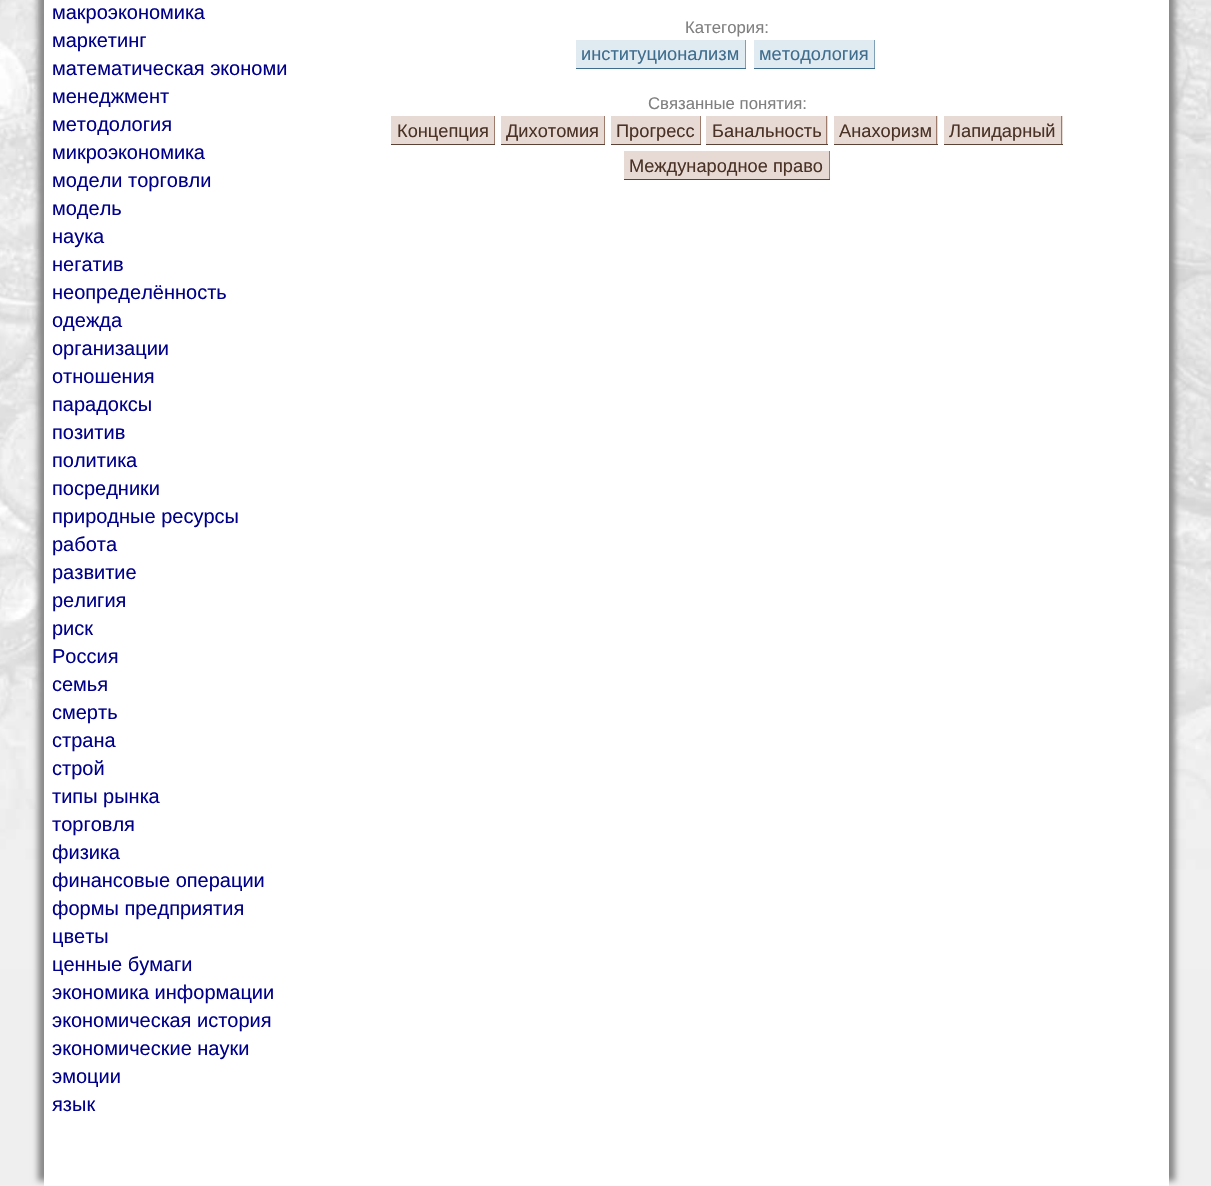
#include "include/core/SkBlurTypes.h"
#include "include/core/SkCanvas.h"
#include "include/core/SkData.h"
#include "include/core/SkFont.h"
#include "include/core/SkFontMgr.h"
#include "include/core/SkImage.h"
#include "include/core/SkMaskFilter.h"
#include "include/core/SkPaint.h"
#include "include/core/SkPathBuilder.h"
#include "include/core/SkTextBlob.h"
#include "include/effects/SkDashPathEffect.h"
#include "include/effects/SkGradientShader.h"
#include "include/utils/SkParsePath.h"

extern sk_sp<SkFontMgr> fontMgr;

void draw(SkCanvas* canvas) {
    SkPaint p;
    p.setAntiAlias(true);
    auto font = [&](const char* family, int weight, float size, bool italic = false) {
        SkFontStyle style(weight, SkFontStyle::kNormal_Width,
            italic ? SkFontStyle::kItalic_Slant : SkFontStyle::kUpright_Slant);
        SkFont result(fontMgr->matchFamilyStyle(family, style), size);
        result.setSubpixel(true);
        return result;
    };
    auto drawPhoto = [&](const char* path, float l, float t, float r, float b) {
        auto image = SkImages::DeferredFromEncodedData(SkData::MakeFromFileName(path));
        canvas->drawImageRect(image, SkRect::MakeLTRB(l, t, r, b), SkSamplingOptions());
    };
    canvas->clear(0xFFEFEFEF);
    drawPhoto("media/1.png", 0, 0, 1211, 969);
    p.setColor(0xFF888888);
    p.setMaskFilter(SkMaskFilter::MakeBlur(kNormal_SkBlurStyle, 3));
    canvas->drawRect(SkRect::MakeLTRB(38, -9, 1163, 1181), p);
    p.setMaskFilter(nullptr);
    p.setMaskFilter(SkMaskFilter::MakeBlur(kNormal_SkBlurStyle, 3));
    canvas->drawRect(SkRect::MakeLTRB(50, -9, 1175, 1181), p);
    p.setMaskFilter(nullptr);
    p.setColor(0xFFFFFFFF);
    canvas->drawRect(SkRect::MakeLTRB(44, 0, 1169, 1186), p);
    auto font1 = font("Liberation Sans", 400, 20);
    p.setColor(0xFF00008B);
    {
        const struct { const char* s; float x, y; } items[] = {
            {"макроэкономика", 52, 19},
            {"маркетинг", 52, 47},
            {"математическая экономи", 52, 75},
            {"менеджмент", 52, 103},
            {"методология", 52, 131},
            {"микроэкономика", 52, 159},
            {"модели торговли", 52, 187},
            {"модель", 52, 215},
            {"наука", 52, 243},
            {"негатив", 52, 271},
            {"неопределённость", 52, 299},
            {"одежда", 52, 327},
            {"организации", 52, 355},
            {"отношения", 52, 383},
            {"парадоксы", 52, 411},
            {"позитив", 52, 439},
            {"политика", 52, 467},
            {"посредники", 52, 495},
            {"природные ресурсы", 52, 523},
            {"работа", 52, 551},
            {"развитие", 52, 579},
            {"религия", 52, 607},
            {"риск", 52, 635},
            {"Россия", 52, 663},
            {"семья", 52, 691},
            {"смерть", 52, 719},
            {"страна", 52, 747},
            {"строй", 52, 775},
            {"типы рынка", 52, 803},
            {"торговля", 52, 831},
            {"физика", 52, 859},
            {"финансовые операции", 52, 887},
            {"формы предприятия", 52, 915},
            {"цветы", 52, 943},
            {"ценные бумаги", 52, 971},
            {"экономика информации", 52, 999},
            {"экономическая история", 52, 1027},
            {"экономические науки", 52, 1055},
            {"эмоции", 52, 1083},
            {"язык", 52, 1111},
        };
        for (auto [s, x, y] : items) {
            canvas->drawString(s, x, y, font1, p);
        }
    }
    auto font2 = font("Liberation Sans", 400, 16.75f);
    p.setColor(0xFF808080);
    canvas->drawString("Категория:", 685, 33, font2, p);
    p.setColor(0xFFE0EAF1);
    canvas->drawRect(SkRect::MakeLTRB(576, 40, 745, 68), p);
    auto font3 = font("Liberation Sans", 400, 18.25f);
    p.setColor(0xFF3E6D8E);
    canvas->drawString("институционализм", 581, 60, font3, p);
    {
        const struct { float l, t, r, b; SkColor color; } items[] = {
            {745, 40, 746, 69, 0xFF7F9FB6},
            {576, 68, 746, 69, 0xFF3E6D8E},
            {754, 40, 874, 68, 0xFFE0EAF1},
        };
        for (auto [l, t, r, b, color] : items) {
            p.setColor(color);
            canvas->drawRect(SkRect::MakeLTRB(l, t, r, b), p);
        }
    }
    p.setColor(0xFF3E6D8E);
    canvas->drawString("методология", 759, 60, font3, p);
    p.setColor(0xFF7F9FB6);
    canvas->drawRect(SkRect::MakeLTRB(874, 40, 875, 69), p);
    p.setColor(0xFF3E6D8E);
    canvas->drawRect(SkRect::MakeLTRB(754, 68, 875, 69), p);
    p.setColor(0xFF808080);
    canvas->drawString("Связанные понятия:", 648, 109, font2, p);
    p.setColor(0xFFE7DAD4);
    canvas->drawRect(SkRect::MakeLTRB(391, 116, 494, 144), p);
    p.setColor(0xFF4A3226);
    canvas->drawString("Концепция", 397, 137, font3, p);
    {
        const struct { float l, t, r, b; SkColor color; } items[] = {
            {494, 116, 495, 145, 0xFF9E7B6B},
            {391, 144, 495, 145, 0xFF5B4236},
            {501, 116, 604, 144, 0xFFE7DAD4},
        };
        for (auto [l, t, r, b, color] : items) {
            p.setColor(color);
            canvas->drawRect(SkRect::MakeLTRB(l, t, r, b), p);
        }
    }
    p.setColor(0xFF4A3226);
    canvas->drawString("Дихотомия", 506, 137, font3, p);
    {
        const struct { float l, t, r, b; SkColor color; } items[] = {
            {604, 116, 605, 145, 0xFF9E7B6B},
            {501, 144, 605, 145, 0xFF5B4236},
            {611, 116, 700, 144, 0xFFE7DAD4},
        };
        for (auto [l, t, r, b, color] : items) {
            p.setColor(color);
            canvas->drawRect(SkRect::MakeLTRB(l, t, r, b), p);
        }
    }
    p.setColor(0xFF4A3226);
    canvas->drawString("Прогресс", 616, 137, font3, p);
    {
        const struct { float l, t, r, b; SkColor color; } items[] = {
            {700, 116, 701, 145, 0xFF9E7B6B},
            {611, 144, 701, 145, 0xFF5B4236},
            {706, 116, 828, 144, 0xFFE7DAD4},
        };
        for (auto [l, t, r, b, color] : items) {
            p.setColor(color);
            canvas->drawRect(SkRect::MakeLTRB(l, t, r, b), p);
        }
    }
    p.setColor(0xFF4A3226);
    canvas->drawString("Банальность", 712, 137, font3, p);
    {
        const struct { float l, t, r, b; SkColor color; } items[] = {
            {826, 116, 827, 145, 0xFF9E7B6B},
            {706, 144, 828, 145, 0xFF5B4236},
            {834, 116, 938, 144, 0xFFE7DAD4},
        };
        for (auto [l, t, r, b, color] : items) {
            p.setColor(color);
            canvas->drawRect(SkRect::MakeLTRB(l, t, r, b), p);
        }
    }
    p.setColor(0xFF4A3226);
    canvas->drawString("Анахоризм", 839, 137, font3, p);
    {
        const struct { float l, t, r, b; SkColor color; } items[] = {
            {936, 116, 937, 145, 0xFF9E7B6B},
            {834, 144, 938, 145, 0xFF5B4236},
            {944, 116, 1063, 144, 0xFFE7DAD4},
        };
        for (auto [l, t, r, b, color] : items) {
            p.setColor(color);
            canvas->drawRect(SkRect::MakeLTRB(l, t, r, b), p);
        }
    }
    p.setColor(0xFF4A3226);
    canvas->drawString("Лапидарный", 949, 137, font3, p);
    {
        const struct { float l, t, r, b; SkColor color; } items[] = {
            {1061, 116, 1062, 145, 0xFF9E7B6B},
            {944, 144, 1063, 145, 0xFF5B4236},
            {624, 151, 829, 179, 0xFFE7DAD4},
        };
        for (auto [l, t, r, b, color] : items) {
            p.setColor(color);
            canvas->drawRect(SkRect::MakeLTRB(l, t, r, b), p);
        }
    }
    p.setColor(0xFF4A3226);
    canvas->drawString("Международное право", 629, 172, font3, p);
    p.setColor(0xFF9E7B6B);
    canvas->drawRect(SkRect::MakeLTRB(829, 151, 830, 180), p);
    p.setColor(0xFF5B4236);
    canvas->drawRect(SkRect::MakeLTRB(624, 179, 830, 180), p);
}
